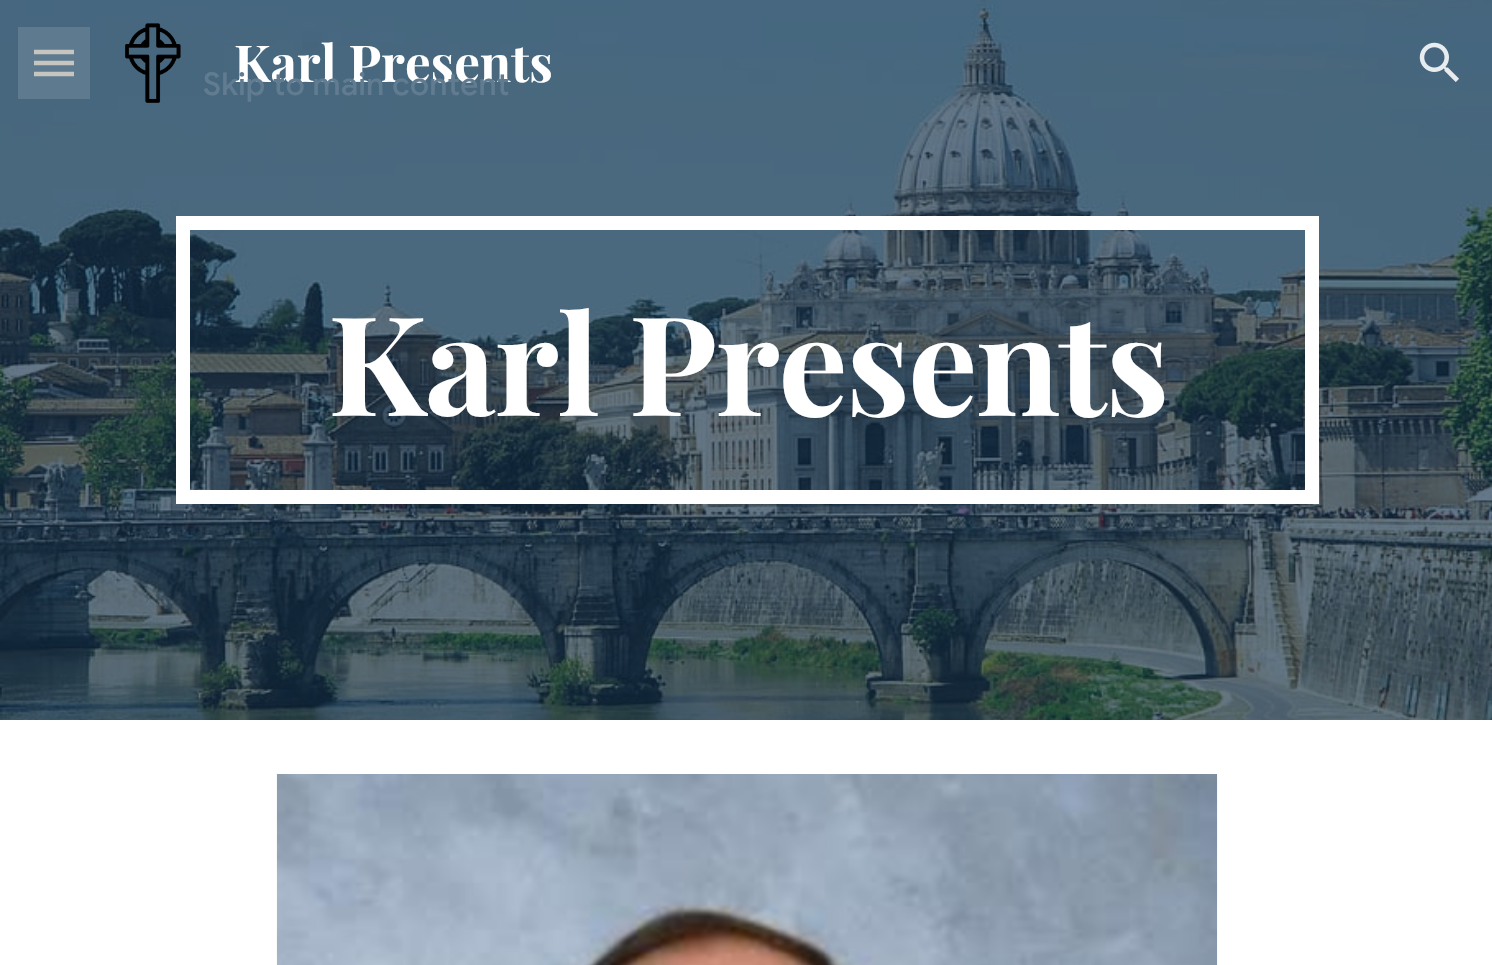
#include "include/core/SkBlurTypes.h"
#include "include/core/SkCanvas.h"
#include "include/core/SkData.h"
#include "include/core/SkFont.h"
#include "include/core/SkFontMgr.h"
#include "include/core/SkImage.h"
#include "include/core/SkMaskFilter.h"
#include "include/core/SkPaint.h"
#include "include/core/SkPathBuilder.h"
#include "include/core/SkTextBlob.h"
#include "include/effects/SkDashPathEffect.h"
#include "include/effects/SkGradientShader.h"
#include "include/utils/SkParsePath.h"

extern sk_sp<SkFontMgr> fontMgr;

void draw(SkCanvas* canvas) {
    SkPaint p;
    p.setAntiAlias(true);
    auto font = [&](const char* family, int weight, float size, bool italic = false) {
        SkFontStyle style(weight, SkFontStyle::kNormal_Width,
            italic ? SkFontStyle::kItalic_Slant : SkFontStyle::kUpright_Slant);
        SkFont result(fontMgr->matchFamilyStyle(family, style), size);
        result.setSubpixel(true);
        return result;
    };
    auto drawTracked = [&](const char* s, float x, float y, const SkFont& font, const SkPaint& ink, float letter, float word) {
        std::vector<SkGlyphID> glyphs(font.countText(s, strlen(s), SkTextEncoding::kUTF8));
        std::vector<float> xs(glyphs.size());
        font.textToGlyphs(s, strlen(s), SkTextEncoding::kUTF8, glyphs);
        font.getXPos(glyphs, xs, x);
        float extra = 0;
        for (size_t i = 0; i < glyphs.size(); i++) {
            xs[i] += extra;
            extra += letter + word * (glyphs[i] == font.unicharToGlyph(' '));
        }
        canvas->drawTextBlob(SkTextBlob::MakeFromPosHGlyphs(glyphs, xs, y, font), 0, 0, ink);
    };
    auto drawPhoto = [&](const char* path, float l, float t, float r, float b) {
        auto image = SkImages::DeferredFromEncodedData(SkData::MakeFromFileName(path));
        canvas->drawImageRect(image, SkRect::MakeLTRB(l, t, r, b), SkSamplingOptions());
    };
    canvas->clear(0xFFFFFFFF);
    drawPhoto("media/3.png", 0, 0, 1492, 720);
    p.setStyle(SkPaint::kStroke_Style);
    p.setStrokeWidth(4.5f);
    p.setColor(0xFFC0BDB8);
    canvas->drawPath(SkPathBuilder().moveTo(34, 52).lineTo(74, 52).moveTo(34, 63).lineTo(74, 63).moveTo(34, 74).lineTo(74, 74).detach(), p);
    p.setStyle(SkPaint::kFill_Style);
    p.setColor(0x1FFFFFFF);
    canvas->drawRect(SkRect::MakeLTRB(18, 27, 90, 99), p);
    drawPhoto("media/1.png", 125, 23, 181, 103);
    auto font1 = font("Playfair Display", 700, 51);
    p.setColor(0xFFFFFFFF);
    canvas->drawString("Karl Presents", 234, 82, font1, p);
    drawPhoto("media/2.png", 1419, 42, 1459, 82);
    p.setStyle(SkPaint::kStroke_Style);
    p.setStrokeWidth(14);
    canvas->drawRect(SkRect::MakeLTRB(183, 223, 1312, 497), p);
    auto font2 = font("Playfair Display", 700, 138);
    p.setStyle(SkPaint::kFill_Style);
    drawTracked("Karl Presents", 328, 416, font2, p, -1.75f, 0);
    drawPhoto("media/4.png", 276, 774, 1218, 965);
    auto font3 = font("Google Sans", 500, 31.5f);
    p.setColor(0xFF617C90);
    drawTracked("Skip to main content", 203, 95, font3, p, 0.3f, 0);
}
